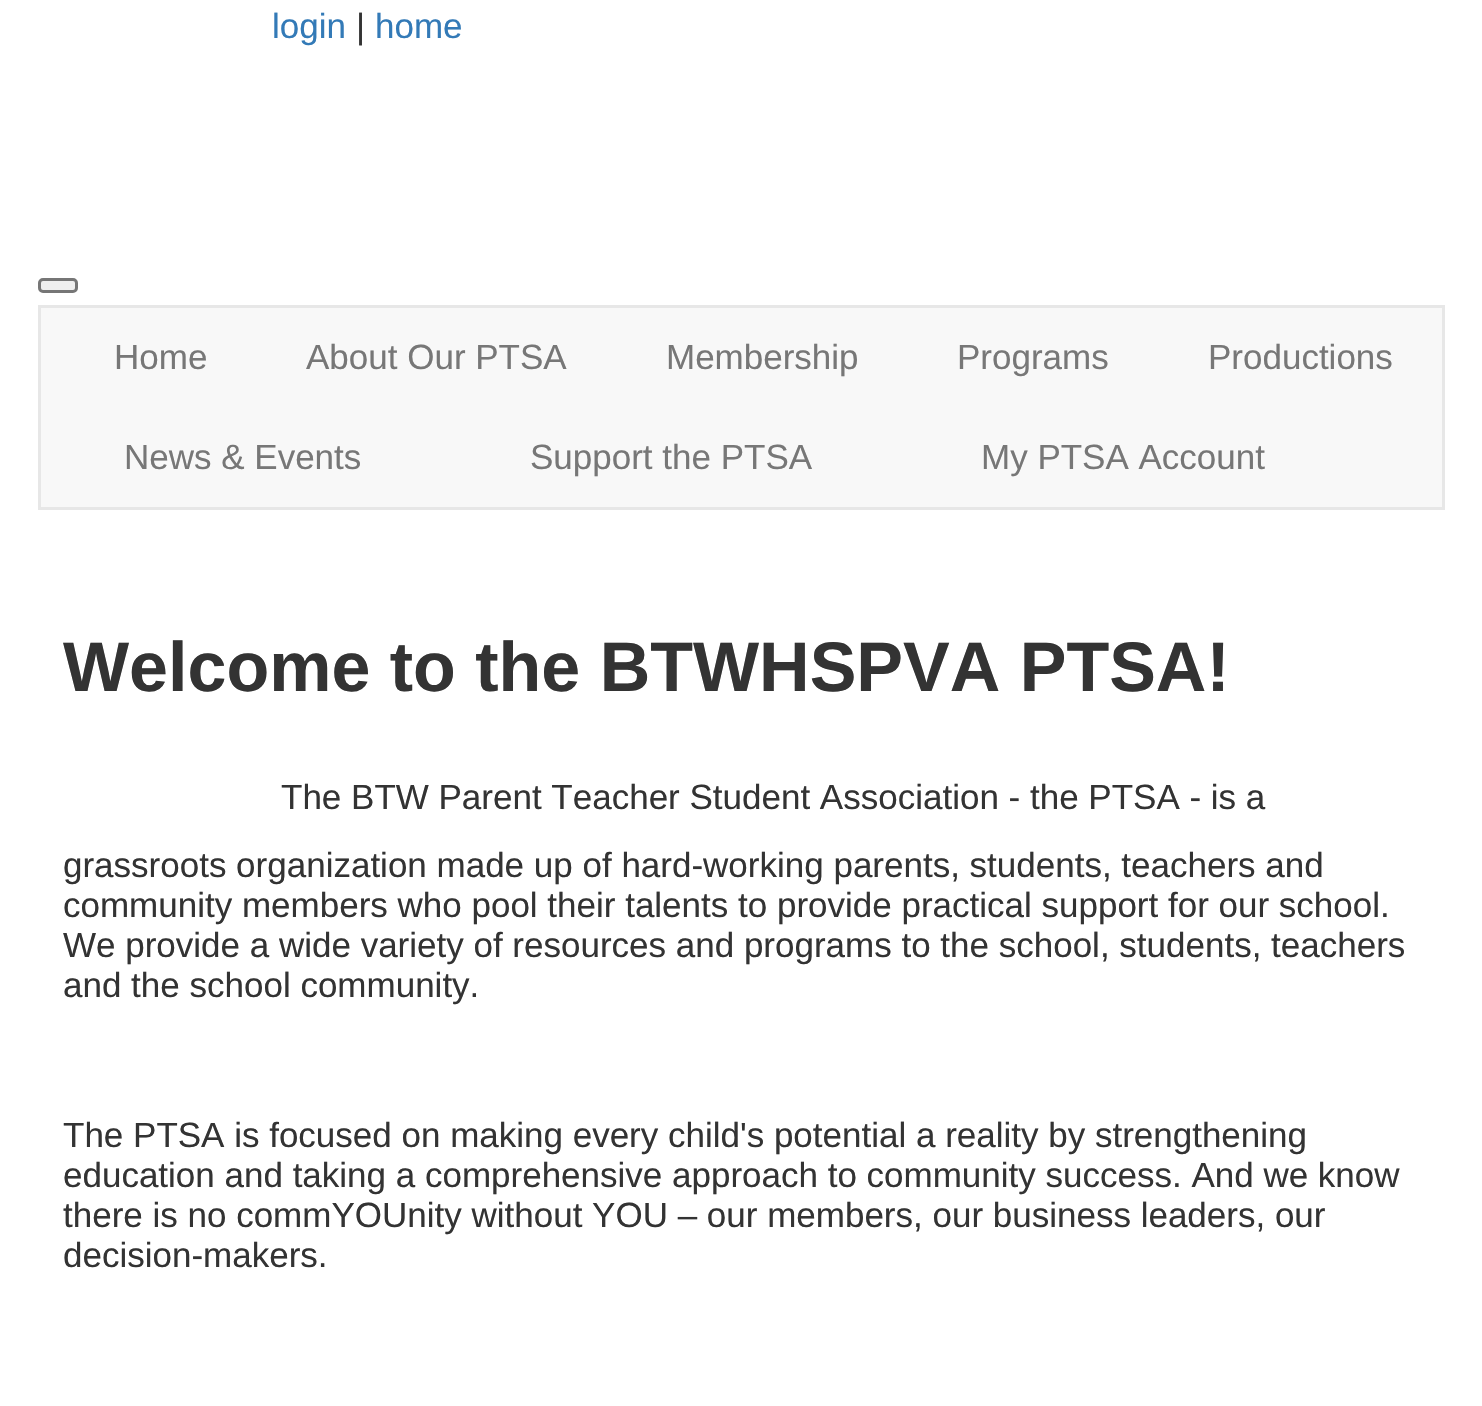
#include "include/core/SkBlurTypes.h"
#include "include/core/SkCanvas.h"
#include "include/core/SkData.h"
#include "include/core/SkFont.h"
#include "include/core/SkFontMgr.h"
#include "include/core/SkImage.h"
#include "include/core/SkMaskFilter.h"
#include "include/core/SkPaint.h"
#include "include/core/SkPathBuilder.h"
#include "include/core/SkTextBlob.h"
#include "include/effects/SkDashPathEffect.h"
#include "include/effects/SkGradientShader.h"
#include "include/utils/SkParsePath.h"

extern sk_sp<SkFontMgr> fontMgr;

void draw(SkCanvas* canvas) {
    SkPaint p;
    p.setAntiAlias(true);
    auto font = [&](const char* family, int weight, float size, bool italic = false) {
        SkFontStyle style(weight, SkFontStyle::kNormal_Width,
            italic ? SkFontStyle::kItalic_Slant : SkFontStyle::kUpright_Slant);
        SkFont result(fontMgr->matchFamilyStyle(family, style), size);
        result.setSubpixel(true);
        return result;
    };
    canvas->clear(0xFFFFFFFF);
    auto font1 = font("Liberation Sans", 400, 35);
    p.setColor(0xFF337AB7);
    canvas->drawString("login", 272, 38, font1, p);
    p.setColor(0xFF333333);
    canvas->drawString("|", 356, 38, font1, p);
    p.setColor(0xFF337AB7);
    canvas->drawString("home", 375, 38, font1, p);
    p.setColor(0xFFEFEFEF);
    canvas->drawRoundRect(SkRect::MakeLTRB(39.5f, 279.5f, 76.5f, 291.5f), 3.5f, 3.5f, p);
    p.setStyle(SkPaint::kStroke_Style);
    p.setStrokeWidth(3);
    p.setColor(0xFF767676);
    canvas->drawRoundRect(SkRect::MakeLTRB(39.5f, 279.5f, 76.5f, 291.5f), 3.5f, 3.5f, p);
    p.setStyle(SkPaint::kFill_Style);
    p.setColor(0xFFF8F8F8);
    canvas->drawRect(SkRect::MakeLTRB(39.5f, 306.5f, 1443.5f, 508.5f), p);
    p.setStyle(SkPaint::kStroke_Style);
    p.setColor(0xFFE7E7E7);
    canvas->drawRect(SkRect::MakeLTRB(39.5f, 306.5f, 1443.5f, 508.5f), p);
    p.setStyle(SkPaint::kFill_Style);
    p.setColor(0xFF777777);
    {
        const struct { const char* s; float x, y; } items[] = {
            {"Home", 114, 369},
            {"About Our PTSA", 306, 369},
            {"Membership", 666, 369},
            {"Programs", 957, 369},
            {"Productions", 1208, 369},
            {"News & Events", 124, 469},
            {"Support the PTSA", 530, 469},
            {"My PTSA Account", 981, 469},
        };
        for (auto [s, x, y] : items) {
            canvas->drawString(s, x, y, font1, p);
        }
    }
    auto font2 = font("Liberation Sans", 700, 70);
    p.setColor(0xFF333333);
    canvas->drawString("Welcome to the BTWHSPVA PTSA!", 63, 691, font2, p);
    {
        const struct { const char* s; float x, y; } items[] = {
            {"The BTW Parent Teacher Student Association - the PTSA - is a", 281, 809},
            {"grassroots organization made up of hard-working parents, students, teachers and", 63, 877},
            {"community members who pool their talents to provide practical support for our school.", 63, 917},
            {"We provide a wide variety of resources and programs to the school, students, teachers", 63, 957},
            {"and the school community.", 63, 997},
            {"The PTSA is focused on making every child's potential a reality by strengthening", 63, 1147},
            {"education and taking a comprehensive approach to community success. And we know", 63, 1187},
            {"there is no commYOUnity without YOU – our members, our business leaders, our", 63, 1227},
            {"decision-makers.", 63, 1267},
        };
        for (auto [s, x, y] : items) {
            canvas->drawString(s, x, y, font1, p);
        }
    }
}
